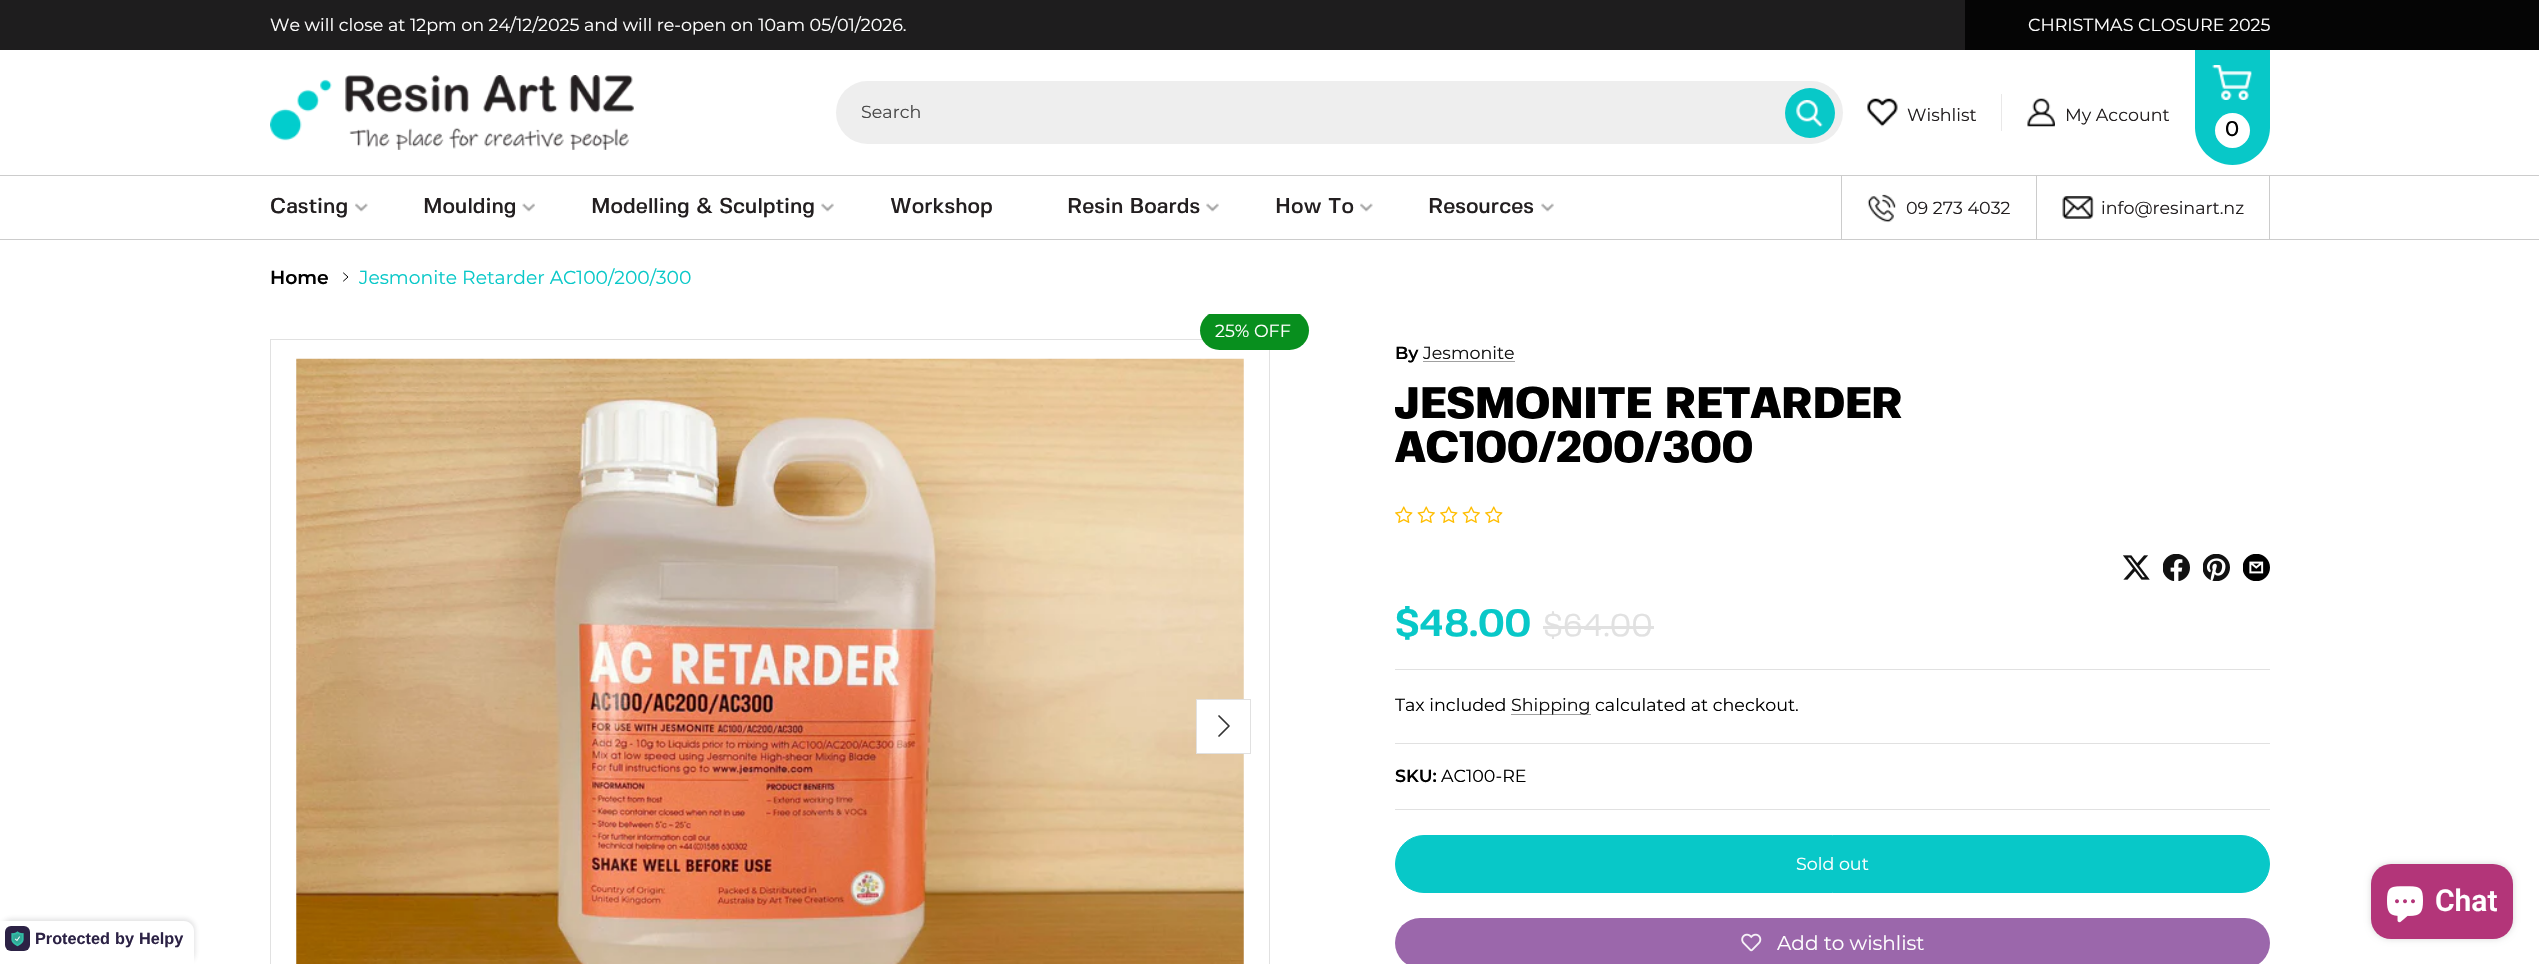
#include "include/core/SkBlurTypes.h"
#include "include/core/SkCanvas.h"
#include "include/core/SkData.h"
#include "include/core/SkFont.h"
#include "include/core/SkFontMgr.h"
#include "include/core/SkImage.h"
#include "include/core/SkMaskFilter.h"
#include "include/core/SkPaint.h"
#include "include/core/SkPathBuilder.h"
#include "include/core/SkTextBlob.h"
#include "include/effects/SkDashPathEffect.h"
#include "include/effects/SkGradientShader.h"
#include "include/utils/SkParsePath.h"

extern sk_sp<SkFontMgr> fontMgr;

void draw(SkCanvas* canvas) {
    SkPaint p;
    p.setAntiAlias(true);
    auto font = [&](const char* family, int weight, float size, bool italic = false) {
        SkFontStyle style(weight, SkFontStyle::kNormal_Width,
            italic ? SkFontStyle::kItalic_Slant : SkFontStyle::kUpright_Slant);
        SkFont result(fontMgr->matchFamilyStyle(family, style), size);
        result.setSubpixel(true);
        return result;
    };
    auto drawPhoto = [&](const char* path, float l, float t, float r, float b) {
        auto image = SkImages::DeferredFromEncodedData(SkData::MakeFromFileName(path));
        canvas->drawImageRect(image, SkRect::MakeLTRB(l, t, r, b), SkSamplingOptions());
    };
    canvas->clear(0xFFFFFFFF);
    p.setColor(0xFF1E1D1E);
    canvas->drawRect(SkRect::MakeLTRB(0, 0, 1965, 50), p);
    auto font1 = font("Montserrat", 400, 17.5f);
    p.setColor(0xFFFFFFFF);
    canvas->drawString("We will close at 12pm on 24/12/2025 and will re-open on 10am 05/01/2026.", 270, 31, font1, p);
    p.setColor(0xFF050505);
    canvas->drawRect(SkRect::MakeLTRB(1965, 0, 2539, 50), p);
    p.setColor(0xFFFFFFFF);
    canvas->drawString("CHRISTMAS CLOSURE 2025", 2028, 31, font1, p);
    drawPhoto("media/1.png", 270, 75, 634, 150);
    p.setColor(0xFFEEEEEE);
    canvas->drawRoundRect(SkRect::MakeLTRB(836, 81, 1843, 144), 31.5f, 31.5f, p);
    p.setColor(0xFF474747);
    canvas->drawString("Search", 861, 118, font1, p);
    p.setColor(0xFF08C8C8);
    canvas->drawCircle(1810, 113, 25, p);
    drawPhoto("media/2.png", 1796, 100, 1823, 127);
    p.setColor(0xFFE9E8E8);
    canvas->drawRect(SkRect::MakeLTRB(2001, 94, 2002, 131), p);
    drawPhoto("media/3.png", 1867, 98, 1898, 127);
    p.setColor(0xFF231F20);
    canvas->drawString("Wishlist", 1907, 121, font1, p);
    drawPhoto("media/4.png", 2027, 98, 2055, 127);
    canvas->drawString("My Account", 2065, 121, font1, p);
    p.setColor(0xFF08C8C8);
    canvas->drawPath(SkPathBuilder().moveTo(2195, 50).lineTo(2270, 50).lineTo(2270, 127.5f).cubicTo(2270, 148, 2253, 165, 2232.5f, 165).cubicTo(2212, 165, 2195, 148, 2195, 127.5f).close().detach(), p);
    drawPhoto("media/5.png", 2212, 65, 2252, 100);
    p.setColor(0xFFFFFFFF);
    canvas->drawCircle(2232.5f, 130.5f, 17.5f, p);
    auto font2 = font("Montserrat", 500, 21.25f);
    p.setColor(0xFF000000);
    canvas->drawString("0", 2225, 136, font2, p);
    p.setColor(0xFFCCCCCC);
    canvas->drawRect(SkRect::MakeLTRB(0, 175, 2539, 176), p);
    canvas->drawRect(SkRect::MakeLTRB(0, 239, 2539, 240), p);
    drawPhoto("media/6.png", 355, 203, 368, 212);
    auto font3 = font("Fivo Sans", 500, 21.25f);
    p.setColor(0xFF231F20);
    canvas->drawString("Casting", 270, 213, font3, p);
    drawPhoto("media/7.png", 522, 203, 535, 212);
    canvas->drawString("Moulding", 423, 213, font3, p);
    drawPhoto("media/8.png", 821, 203, 834, 212);
    canvas->drawString("Modelling & Sculpting", 591, 213, font3, p);
    canvas->drawString("Workshop", 890, 213, font3, p);
    drawPhoto("media/8.png", 1206, 203, 1219, 212);
    canvas->drawString("Resin Boards", 1067, 213, font3, p);
    drawPhoto("media/6.png", 1360, 203, 1373, 212);
    canvas->drawString("How To", 1275, 213, font3, p);
    drawPhoto("media/8.png", 1541, 203, 1554, 212);
    canvas->drawString("Resources", 1428, 213, font3, p);
    p.setColor(0xFFCCCCCC);
    canvas->drawRect(SkRect::MakeLTRB(2036, 176, 2037, 239), p);
    canvas->drawRect(SkRect::MakeLTRB(1841, 176, 1842, 239), p);
    drawPhoto("media/9.png", 1867, 194, 1896, 223);
    p.setColor(0xFF231F20);
    canvas->drawString("09 273 4032", 1906, 214, font1, p);
    p.setColor(0xFFCCCCCC);
    canvas->drawRect(SkRect::MakeLTRB(2269, 176, 2270, 239), p);
    drawPhoto("media/10.png", 2062, 196, 2094, 219);
    p.setColor(0xFF231F20);
    canvas->drawString("info@resinart.nz", 2101, 214, font1, p);
    p.setStyle(SkPaint::kStroke_Style);
    p.setStrokeWidth(1);
    p.setColor(0xFFE1E1E1);
    canvas->drawRect(SkRect::MakeLTRB(270.5f, 339.5f, 1269.5f, 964.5f), p);
    p.setStyle(SkPaint::kFill_Style);
    p.setColor(0xFF088F1E);
    canvas->drawRoundRect(SkRect::MakeLTRB(1200, 311, 1309, 350), 19.5f, 19.5f, p);
    p.setColor(0xFFFFFFFF);
    canvas->drawRect(SkRect::MakeLTRB(1209, 311, 1300, 314), p);
    auto font4 = font("Montserrat", 600, 18.75f);
    p.setColor(0xFF000000);
    canvas->drawString("Home", 270, 284, font4, p);
    p.setStyle(SkPaint::kStroke_Style);
    p.setStrokeCap(SkPaint::kRound_Cap);
    p.setStrokeJoin(SkPaint::kRound_Join);
    canvas->drawPath(SkPathBuilder().moveTo(343.5f, 281).lineTo(348, 277).lineTo(343.5f, 273).detach(), p);
    auto font5 = font("Montserrat", 400, 18.75f);
    p.setStyle(SkPaint::kFill_Style);
    p.setColor(0xFF08C8C8);
    canvas->drawString("Jesmonite Retarder AC100/200/300", 359, 284, font5, p);
    p.setColor(0xFFFFFFFF);
    canvas->drawString("25% OFF", 1215, 337, font1, p);
    drawPhoto("media/11.png", 296, 358, 1244, 964);
    canvas->drawRect(SkRect::MakeLTRB(1197, 700, 1244, 753), p);
    p.setStyle(SkPaint::kStroke_Style);
    p.setStrokeCap(SkPaint::kButt_Cap);
    p.setStrokeJoin(SkPaint::kMiter_Join);
    p.setColor(0xFFE1E1E1);
    canvas->drawRect(SkRect::MakeLTRB(1196.5f, 699.5f, 1250.5f, 753.5f), p);
    p.setStrokeWidth(1.7f);
    p.setStrokeCap(SkPaint::kRound_Cap);
    p.setStrokeJoin(SkPaint::kRound_Join);
    p.setColor(0xFF333333);
    canvas->drawPath(SkPathBuilder().moveTo(1219, 736).lineTo(1229, 726).lineTo(1219, 716).detach(), p);
    auto font6 = font("Montserrat", 600, 17.5f);
    p.setStyle(SkPaint::kFill_Style);
    p.setColor(0xFF000000);
    canvas->drawString("By", 1395, 359, font6, p);
    p.setColor(0xFF111111);
    canvas->drawString("Jesmonite", 1423, 359, font1, p);
    p.setColor(0xFFA0A0A0);
    canvas->drawRect(SkRect::MakeLTRB(1423, 361, 1515, 362), p);
    auto font7 = font("Fivo Sans", 900, 43.75f);
    p.setColor(0xFF000000);
    canvas->drawString("JESMONITE RETARDER", 1395, 418, font7, p);
    canvas->drawString("AC100/200/300", 1395, 462, font7, p);
    drawPhoto("media/12.png", 1395, 506, 1413, 523);
    drawPhoto("media/13.png", 1417, 506, 1435, 523);
    drawPhoto("media/12.png", 1440, 506, 1458, 523);
    drawPhoto("media/13.png", 1462, 506, 1480, 523);
    drawPhoto("media/12.png", 1485, 506, 1503, 523);
    drawPhoto("media/14.png", 2123, 555, 2150, 580);
    drawPhoto("media/15.png", 2163, 554, 2190, 581);
    drawPhoto("media/16.png", 2203, 554, 2230, 581);
    drawPhoto("media/17.png", 2243, 554, 2270, 581);
    p.setColor(0xFFE1E1E1);
    canvas->drawRect(SkRect::MakeLTRB(1395, 743, 2270, 744), p);
    canvas->drawRect(SkRect::MakeLTRB(1395, 669, 2270, 670), p);
    auto font8 = font("Fivo Sans", 700, 37.5f);
    p.setColor(0xFF08C8C8);
    canvas->drawString("$48.00", 1395, 636, font8, p);
    auto font9 = font("Fivo Sans", 400, 31);
    p.setColor(0xFFE1E1E1);
    canvas->drawString("$64.00", 1543, 636, font9, p);
    canvas->drawRect(SkRect::MakeLTRB(1543, 626, 1654, 629), p);
    p.setColor(0xFF000000);
    canvas->drawString("Tax included", 1395, 711, font1, p);
    p.setColor(0xFFA0A0A0);
    canvas->drawRect(SkRect::MakeLTRB(1511, 714, 1591, 715), p);
    p.setColor(0xFF111111);
    canvas->drawString("Shipping", 1511, 711, font1, p);
    p.setColor(0xFF000000);
    canvas->drawString("calculated at checkout.", 1595, 711, font1, p);
    p.setColor(0xFFE1E1E1);
    canvas->drawRect(SkRect::MakeLTRB(1395, 809, 2270, 810), p);
    p.setColor(0xFF000000);
    canvas->drawString("SKU:", 1395, 782, font6, p);
    canvas->drawString("AC100-RE", 1441, 782, font1, p);
    p.setColor(0xFF08C8C8);
    canvas->drawRoundRect(SkRect::MakeLTRB(1395.5f, 835.5f, 2269.5f, 892.5f), 28.5f, 28.5f, p);
    p.setStyle(SkPaint::kStroke_Style);
    p.setStrokeWidth(1);
    p.setStrokeCap(SkPaint::kButt_Cap);
    p.setStrokeJoin(SkPaint::kMiter_Join);
    canvas->drawRoundRect(SkRect::MakeLTRB(1395.5f, 835.5f, 2269.5f, 892.5f), 28.5f, 28.5f, p);
    p.setStyle(SkPaint::kFill_Style);
    p.setColor(0xFFFFFFFF);
    canvas->drawString("Sold out", 1796, 870, font1, p);
    p.setColor(0xFF9B67AB);
    canvas->drawRoundRect(SkRect::MakeLTRB(1395, 918, 2270, 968), 25, 25, p);
    drawPhoto("media/18.png", 1741, 933, 1762, 952);
    auto font10 = font("Montserrat", 400, 20);
    p.setColor(0xFFFFFFFF);
    canvas->drawString("Add to wishlist", 1777, 950, font10, p);
    p.setColor(0x26000000);
    p.setMaskFilter(SkMaskFilter::MakeBlur(kNormal_SkBlurStyle, 3));
    canvas->drawRoundRect(SkRect::MakeLTRB(2371, 864, 2513, 939), 20, 20, p);
    p.setMaskFilter(nullptr);
    p.setColor(0xFFB33579);
    canvas->drawRoundRect(SkRect::MakeLTRB(2371, 864, 2513, 939), 20, 20, p);
    drawPhoto("media/19.png", 2387, 886, 2423, 923);
    auto font11 = font("Roboto", 600, 30);
    p.setColor(0xFFFFFFFF);
    canvas->drawString("Chat", 2435, 911, font11, p);
    p.setColor(0x29403C43);
    p.setMaskFilter(SkMaskFilter::MakeBlur(kNormal_SkBlurStyle, 2.5f));
    canvas->drawRoundRect(SkRect::MakeLTRB(1, 919, 195, 963), 10, 10, p);
    p.setMaskFilter(nullptr);
    p.setColor(0xFFFFFFFF);
    canvas->drawPath(SkPathBuilder().moveTo(0, 921).lineTo(184, 921).cubicTo(189.5f, 921, 194, 925.5f, 194, 931).lineTo(194, 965).lineTo(0, 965).close().detach(), p);
    p.setColor(0xFF2C2245);
    canvas->drawRoundRect(SkRect::MakeLTRB(5, 926, 30, 951), 6, 6, p);
    drawPhoto("media/20.png", 11, 931, 24, 947);
    auto font12 = font("Liberation Sans", 700, 16.25f);
    {
        const struct { const char* s; float x, y; } items[] = {
            {"Protected", 35, 944},
            {"by", 115, 944},
            {"Helpy", 139, 944},
        };
        for (auto [s, x, y] : items) {
            canvas->drawString(s, x, y, font12, p);
        }
    }
}
